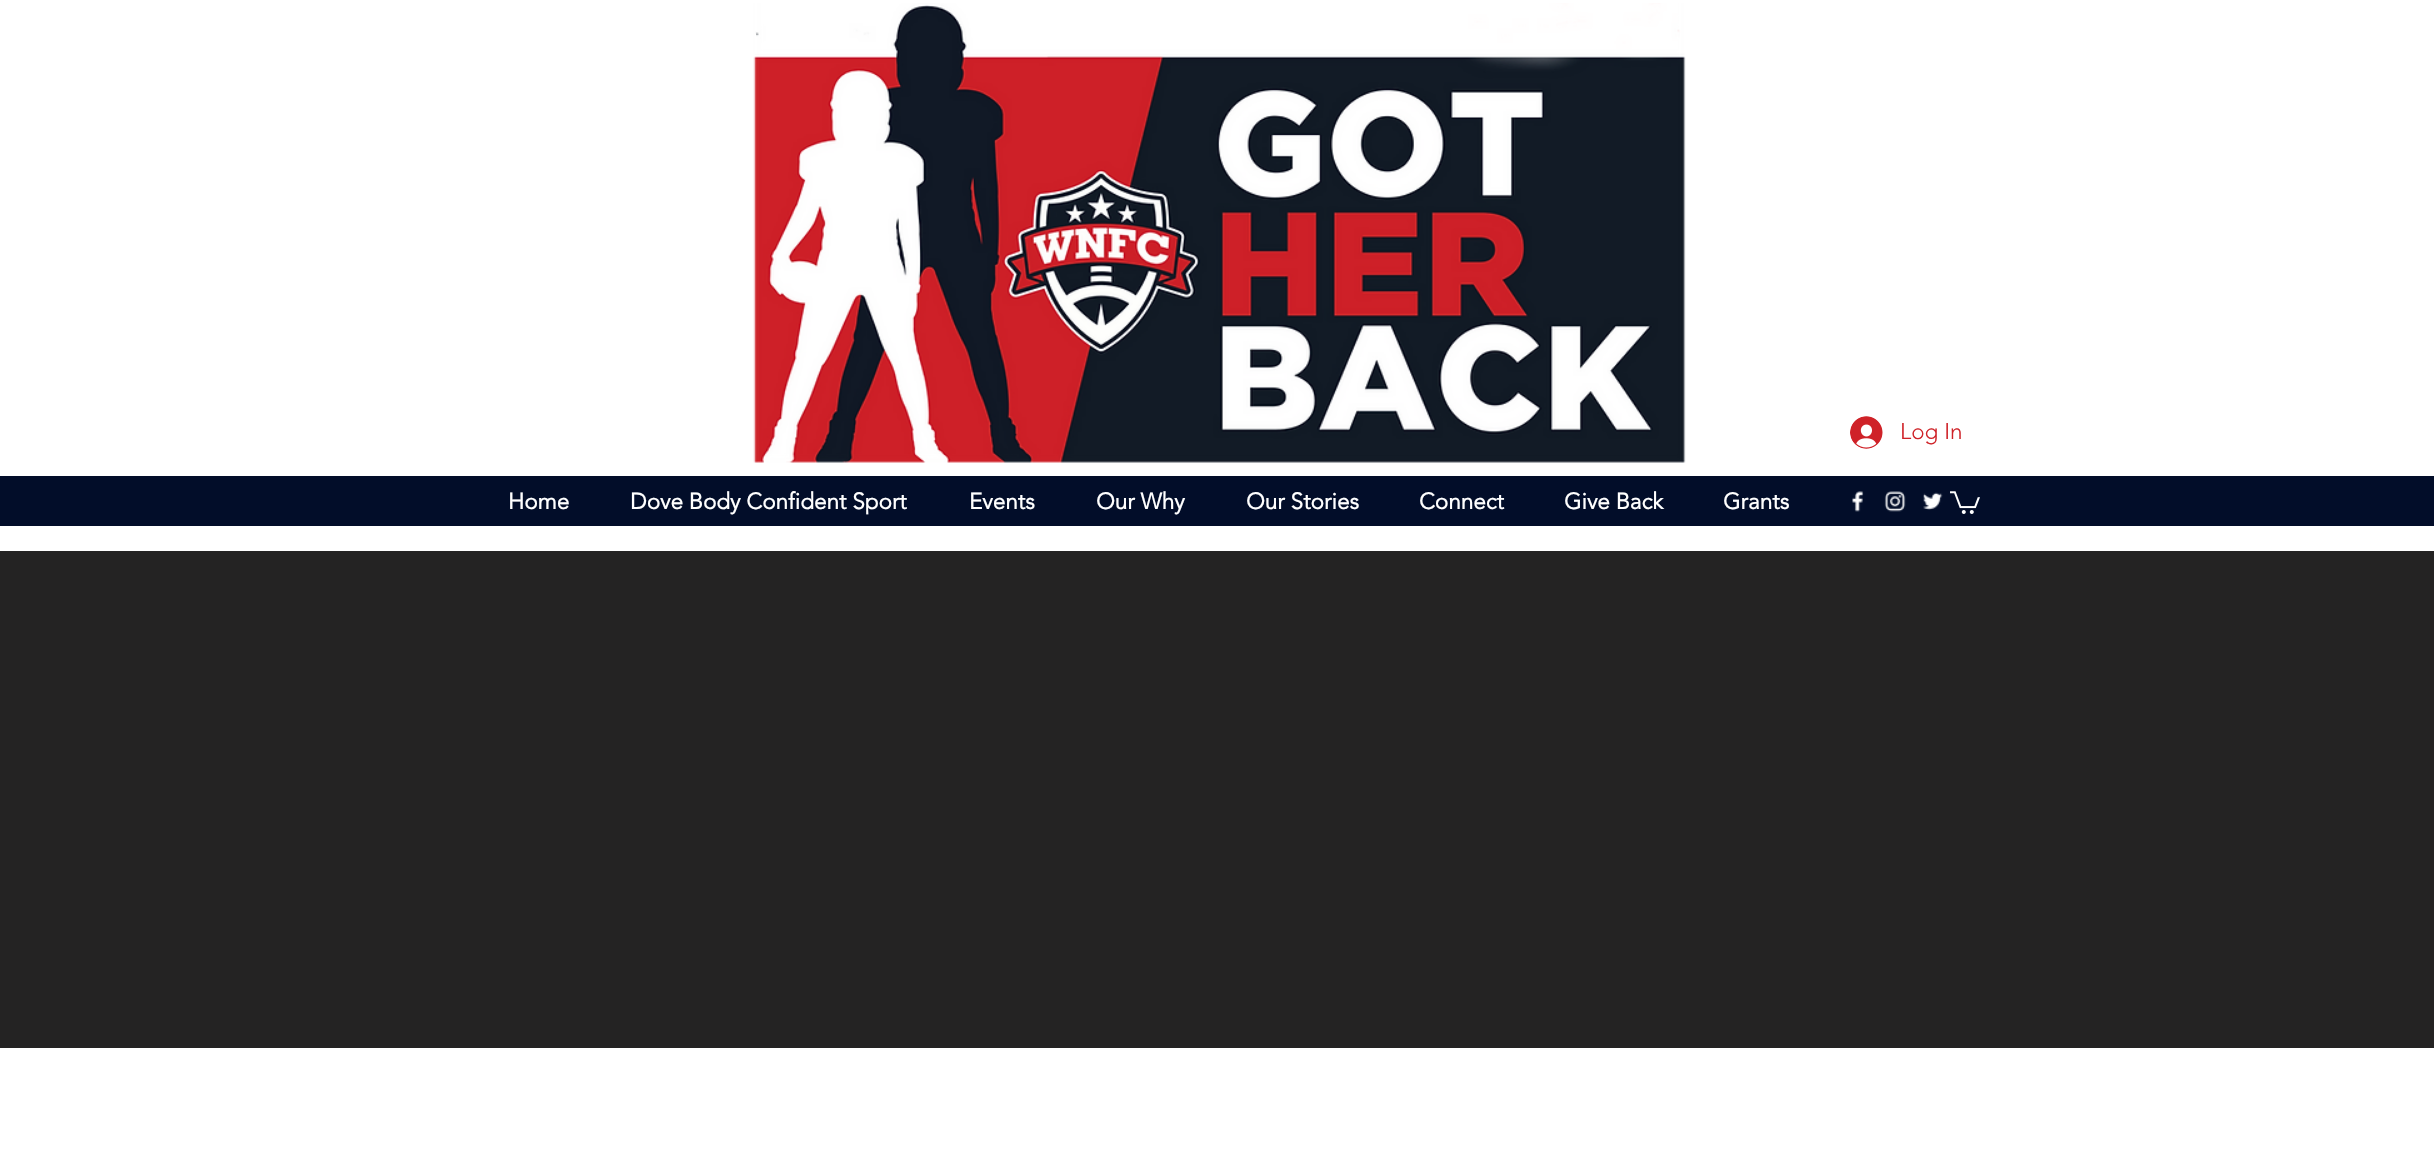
#include "include/core/SkBlurTypes.h"
#include "include/core/SkCanvas.h"
#include "include/core/SkData.h"
#include "include/core/SkFont.h"
#include "include/core/SkFontMgr.h"
#include "include/core/SkImage.h"
#include "include/core/SkMaskFilter.h"
#include "include/core/SkPaint.h"
#include "include/core/SkPathBuilder.h"
#include "include/core/SkTextBlob.h"
#include "include/effects/SkDashPathEffect.h"
#include "include/effects/SkGradientShader.h"
#include "include/utils/SkParsePath.h"

extern sk_sp<SkFontMgr> fontMgr;

void draw(SkCanvas* canvas) {
    SkPaint p;
    p.setAntiAlias(true);
    auto font = [&](const char* family, int weight, float size, bool italic = false) {
        SkFontStyle style(weight, SkFontStyle::kNormal_Width,
            italic ? SkFontStyle::kItalic_Slant : SkFontStyle::kUpright_Slant);
        SkFont result(fontMgr->matchFamilyStyle(family, style), size);
        result.setSubpixel(true);
        return result;
    };
    auto drawPhoto = [&](const char* path, float l, float t, float r, float b) {
        auto image = SkImages::DeferredFromEncodedData(SkData::MakeFromFileName(path));
        canvas->drawImageRect(image, SkRect::MakeLTRB(l, t, r, b), SkSamplingOptions());
    };
    canvas->clear(0xFFFFFFFF);
    drawPhoto("media/1.png", 753, 3, 1686, 463);
    drawPhoto("media/2.png", 1850, 416, 1883, 449);
    auto font1 = font("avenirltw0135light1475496", 300, 22.5f);
    p.setColor(0xFFCF2228);
    canvas->drawString("Log In", 1900, 439, font1, p);
    p.setColor(0xFF020D29);
    canvas->drawRect(SkRect::MakeLTRB(0, 476, 2434, 526), p);
    auto font2 = font("avenirltw0135light1475496", 700, 22.5f);
    p.setColor(0xFFFFFFFF);
    {
        const struct { const char* s; float x, y; } items[] = {
            {"Home", 508, 509},
            {"Dove Body Confident Sport", 630, 509},
            {"Events", 969, 509},
            {"Our Why", 1096, 509},
            {"Our Stories", 1246, 509},
            {"Connect", 1419, 509},
            {"Give Back", 1564, 509},
            {"Grants", 1723, 509},
        };
        for (auto [s, x, y] : items) {
            canvas->drawString(s, x, y, font2, p);
        }
    }
    drawPhoto("media/3.png", 1852, 491, 1864, 512);
    drawPhoto("media/4.png", 1884, 491, 1906, 512);
    drawPhoto("media/5.png", 1923, 492, 1943, 510);
    drawPhoto("media/6.png", 1950, 491, 1980, 514);
    p.setColor(0xFF242323);
    canvas->drawRect(SkRect::MakeLTRB(0, 551, 2434, 1048), p);
}
